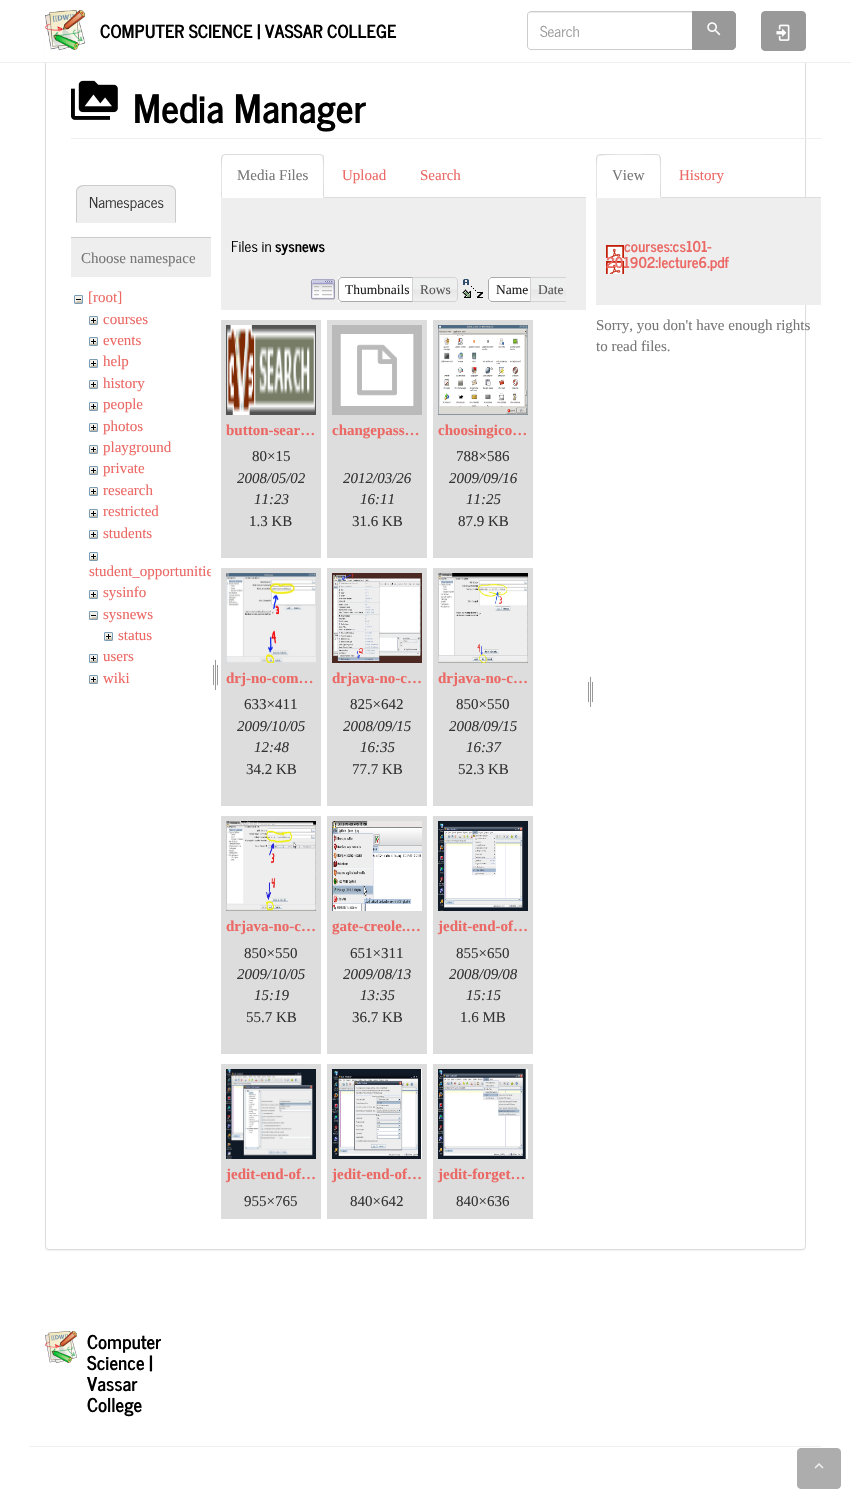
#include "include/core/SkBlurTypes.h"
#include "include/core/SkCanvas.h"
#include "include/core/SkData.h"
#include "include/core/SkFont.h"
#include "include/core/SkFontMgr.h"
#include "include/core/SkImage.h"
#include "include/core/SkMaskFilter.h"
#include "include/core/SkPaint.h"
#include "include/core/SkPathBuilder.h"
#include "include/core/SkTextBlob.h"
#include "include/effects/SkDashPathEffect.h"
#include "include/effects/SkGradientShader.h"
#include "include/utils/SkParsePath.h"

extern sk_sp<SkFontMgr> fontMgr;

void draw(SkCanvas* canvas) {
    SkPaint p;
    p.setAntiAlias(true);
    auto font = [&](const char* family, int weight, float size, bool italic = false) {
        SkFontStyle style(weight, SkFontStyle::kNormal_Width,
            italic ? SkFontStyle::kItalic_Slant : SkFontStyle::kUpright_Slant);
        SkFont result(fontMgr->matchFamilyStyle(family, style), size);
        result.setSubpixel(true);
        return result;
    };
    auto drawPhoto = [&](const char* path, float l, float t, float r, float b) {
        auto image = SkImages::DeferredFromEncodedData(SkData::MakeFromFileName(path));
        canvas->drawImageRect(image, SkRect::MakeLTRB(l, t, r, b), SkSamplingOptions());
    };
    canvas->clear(0xFFFFFFFF);
    p.setColor(0x0D000000);
    p.setMaskFilter(SkMaskFilter::MakeBlur(kNormal_SkBlurStyle, 0.5f));
    canvas->drawRoundRect(SkRect::MakeLTRB(45, 27, 806, 1251), 4, 4, p);
    p.setMaskFilter(nullptr);
    p.setColor(0xFFFFFFFF);
    canvas->drawRoundRect(SkRect::MakeLTRB(45.5f, 26.5f, 805.5f, 1249.5f), 3.5f, 3.5f, p);
    p.setStyle(SkPaint::kStroke_Style);
    p.setStrokeWidth(1);
    p.setColor(0xFFDDDDDD);
    canvas->drawRoundRect(SkRect::MakeLTRB(45.5f, 26.5f, 805.5f, 1249.5f), 3.5f, 3.5f, p);
    p.setStyle(SkPaint::kFill_Style);
    p.setColor(0xFFFFFFFF);
    canvas->drawRect(SkRect::MakeLTRB(45, 26, 806, 62), p);
    p.setColor(0xFFEEEEEE);
    canvas->drawRect(SkRect::MakeLTRB(0, 62, 851, 63), p);
    drawPhoto("media/1.png", 45, 10, 85, 50);
    auto font1 = font("News Cycle", 700, 18);
    p.setColor(0xFF000000);
    canvas->drawString("COMPUTER SCIENCE | VASSAR COLLEGE", 100, 38, font1, p);
    p.setColor(0xFFECECEC);
    canvas->drawPath(SkPathBuilder().moveTo(531, 13).lineTo(692, 13).lineTo(692, 12).lineTo(531, 12).cubicTo(529, 12, 528, 14, 528, 16).cubicTo(528, 14, 529, 13, 531, 13).close().detach(), p);
    p.setStyle(SkPaint::kStroke_Style);
    p.setColor(0xFFCCCCCC);
    canvas->drawPath(SkPathBuilder().moveTo(531, 11.5f).lineTo(692.5f, 11.5f).lineTo(692.5f, 49.5f).lineTo(531, 49.5f).cubicTo(529, 49.5f, 527.5f, 48, 527.5f, 46).lineTo(527.5f, 15).cubicTo(527.5f, 13, 529, 11.5f, 531, 11.5f).close().detach(), p);
    auto font2 = font("News Cycle", 400, 15);
    p.setStyle(SkPaint::kFill_Style);
    p.setColor(0xFF999999);
    canvas->drawString("Search", 540, 37, font2, p);
    canvas->drawPath(SkPathBuilder().moveTo(692.5f, 11.5f).lineTo(732, 11.5f).cubicTo(734, 11.5f, 735.5f, 13, 735.5f, 15).lineTo(735.5f, 46).cubicTo(735.5f, 48, 734, 49.5f, 732, 49.5f).lineTo(692.5f, 49.5f).close().detach(), p);
    p.setStyle(SkPaint::kStroke_Style);
    canvas->drawPath(SkPathBuilder().moveTo(692.5f, 11.5f).lineTo(732, 11.5f).cubicTo(734, 11.5f, 735.5f, 13, 735.5f, 15).lineTo(735.5f, 46).cubicTo(735.5f, 48, 734, 49.5f, 732, 49.5f).lineTo(692.5f, 49.5f).close().detach(), p);
    drawPhoto("media/2.png", 707, 22, 721, 36);
    p.setStyle(SkPaint::kFill_Style);
    canvas->drawRoundRect(SkRect::MakeLTRB(761.5f, 11.5f, 805.5f, 50.5f), 3.5f, 3.5f, p);
    p.setStyle(SkPaint::kStroke_Style);
    canvas->drawRoundRect(SkRect::MakeLTRB(761.5f, 11.5f, 805.5f, 50.5f), 3.5f, 3.5f, p);
    drawPhoto("media/3.png", 776, 24, 790, 41);
    p.setStyle(SkPaint::kFill_Style);
    p.setColor(0xFFEEEEEE);
    canvas->drawRect(SkRect::MakeLTRB(71, 138, 821, 139), p);
    drawPhoto("media/4.png", 71, 80, 118, 120);
    auto font3 = font("News Cycle", 700, 39);
    p.setColor(0xFF000000);
    canvas->drawString("Media Manager", 133, 123, font3, p);
    p.setColor(0xFFEEEEEE);
    canvas->drawPath(SkPathBuilder().moveTo(84, 185).lineTo(168, 185).cubicTo(172.5f, 185, 176, 188.5f, 176, 193).lineTo(176, 223).lineTo(76, 223).lineTo(76, 193).cubicTo(76, 188.5f, 79.5f, 185, 84, 185).close().detach(), p);
    p.setColor(0xFFCCCCCC);
    canvas->drawPath(SkPathBuilder().moveTo(84, 185).cubicTo(81, 185, 79, 186, 78, 187).lineTo(79, 188).cubicTo(80, 187, 82, 186, 84, 186).lineTo(168, 186).cubicTo(170, 186, 172, 187, 173, 188).lineTo(174, 187).cubicTo(173, 186, 171, 185, 168, 185).close().detach(), p);
    canvas->drawPath(SkPathBuilder().moveTo(176, 223).lineTo(176, 192).cubicTo(176, 190, 175.5f, 188.5f, 174, 187).lineTo(173, 188).cubicTo(174.5f, 189, 175, 190.5f, 175, 192).lineTo(175, 222).close().detach(), p);
    p.setColor(0xFFEEEEEE);
    canvas->drawPath(SkPathBuilder().moveTo(176, 223).lineTo(175, 222).lineTo(77, 222).lineTo(76, 223).close().detach(), p);
    p.setColor(0xFFCCCCCC);
    canvas->drawPath(SkPathBuilder().moveTo(76, 223).lineTo(77, 222).lineTo(77, 192).cubicTo(77, 190.5f, 77.5f, 189, 79, 188).lineTo(78, 187).cubicTo(76.5f, 188.5f, 76, 190, 76, 192).close().detach(), p);
    p.setColor(0xFF333333);
    canvas->drawString("Namespaces", 89, 208, font2, p);
    p.setColor(0xFFEEEEEE);
    canvas->drawRect(SkRect::MakeLTRB(71, 238, 211, 277), p);
    p.setColor(0xFFCCCCCC);
    canvas->drawRect(SkRect::MakeLTRB(71, 237, 211, 238), p);
    auto font4 = font("Liberation Serif", 400, 15);
    p.setColor(0xFF777777);
    canvas->drawString("Choose namespace", 81, 263, font4, p);
    drawPhoto("media/5.png", 74, 295, 83, 304);
    p.setColor(0xFFEB6864);
    canvas->drawString("[root]", 88, 302, font4, p);
    drawPhoto("media/6.png", 89, 316, 98, 325);
    canvas->drawString("courses", 103, 324, font4, p);
    drawPhoto("media/6.png", 89, 337, 98, 346);
    canvas->drawString("events", 103, 345, font4, p);
    drawPhoto("media/6.png", 89, 359, 98, 368);
    canvas->drawString("help", 103, 366, font4, p);
    drawPhoto("media/6.png", 89, 380, 98, 389);
    canvas->drawString("history", 103, 388, font4, p);
    drawPhoto("media/6.png", 89, 402, 98, 411);
    canvas->drawString("people", 103, 409, font4, p);
    drawPhoto("media/6.png", 89, 423, 98, 432);
    canvas->drawString("photos", 103, 431, font4, p);
    drawPhoto("media/6.png", 89, 445, 98, 454);
    canvas->drawString("playground", 103, 452, font4, p);
    drawPhoto("media/6.png", 89, 466, 98, 475);
    canvas->drawString("private", 103, 473, font4, p);
    drawPhoto("media/6.png", 89, 487, 98, 496);
    canvas->drawString("research", 103, 495, font4, p);
    drawPhoto("media/6.png", 89, 509, 98, 518);
    canvas->drawString("restricted", 103, 516, font4, p);
    drawPhoto("media/6.png", 89, 530, 98, 539);
    canvas->drawString("students", 103, 538, font4, p);
    drawPhoto("media/6.png", 89, 552, 98, 561);
    canvas->save();
    canvas->clipRect(SkRect::MakeLTRB(89, 544, 211, 582));
    canvas->drawString("student_opportunitie", 89, 576, font4, p);
    canvas->restore();
    drawPhoto("media/6.png", 89, 590, 98, 599);
    canvas->drawString("sysinfo", 103, 597, font4, p);
    drawPhoto("media/5.png", 89, 611, 98, 620);
    canvas->drawString("sysnews", 103, 619, font4, p);
    drawPhoto("media/6.png", 104, 632, 113, 641);
    canvas->drawString("status", 118, 640, font4, p);
    drawPhoto("media/6.png", 89, 654, 98, 663);
    canvas->drawString("users", 103, 661, font4, p);
    drawPhoto("media/6.png", 89, 675, 98, 684);
    canvas->drawString("wiki", 103, 683, font4, p);
    drawPhoto("media/7.png", 213, 659, 218, 690);
    p.setColor(0xFFDDDDDD);
    canvas->drawRect(SkRect::MakeLTRB(324, 197, 586, 198), p);
    canvas->drawPath(SkPathBuilder().moveTo(225, 154).lineTo(222, 155).lineTo(223, 156).lineTo(225, 155).lineTo(320, 155).lineTo(322, 156).lineTo(323, 155).lineTo(320, 154).close().detach(), p);
    canvas->drawPath(SkPathBuilder().moveTo(324, 198).lineTo(324, 158).cubicTo(324, 157, 324, 156, 323, 155).lineTo(322, 156).cubicTo(324, 158, 323, 192, 323, 197).close().detach(), p);
    canvas->drawPath(SkPathBuilder().moveTo(221, 198).lineTo(222, 197).cubicTo(222, 192, 221, 158, 223, 156).lineTo(222, 155).lineTo(221, 158).close().detach(), p);
    p.setColor(0xFF777777);
    canvas->drawString("Media Files", 237, 180, font4, p);
    p.setColor(0xFFEB6864);
    canvas->drawString("Upload", 342, 180, font4, p);
    canvas->drawString("Search", 420, 180, font4, p);
    p.setColor(0xFFEEEEEE);
    canvas->drawRect(SkRect::MakeLTRB(221, 198, 586, 310), p);
    p.setColor(0xFF000000);
    canvas->drawString("Files in", 231, 252, font2, p);
    auto font5 = font("News Cycle", 700, 15);
    canvas->drawString("sysnews", 275, 252, font5, p);
    drawPhoto("media/8.png", 311, 279, 335, 300);
    p.setColor(0xFFFFFFFF);
    canvas->drawRect(SkRect::MakeLTRB(338, 277, 412, 302), p);
    p.setStyle(SkPaint::kStroke_Style);
    p.setColor(0xFFAAAAAA);
    canvas->drawPath(SkPathBuilder().moveTo(342, 277.5f).lineTo(417.5f, 277.5f).lineTo(417.5f, 301.5f).lineTo(342, 301.5f).cubicTo(340, 301.5f, 338.5f, 300, 338.5f, 298).lineTo(338.5f, 281).cubicTo(338.5f, 279, 340, 277.5f, 342, 277.5f).close().detach(), p);
    auto font6 = font("Liberation Serif", 400, 13.5f);
    p.setStyle(SkPaint::kFill_Style);
    p.setColor(0xFF212121);
    canvas->drawString("Thumbnails", 345, 294, font6, p);
    drawPhoto("media/9.png", 413, 277, 458, 302);
    p.setStyle(SkPaint::kStroke_Style);
    p.setColor(0xFFD3D3D3);
    canvas->drawPath(SkPathBuilder().moveTo(412.5f, 277.5f).lineTo(454, 277.5f).cubicTo(456, 277.5f, 457.5f, 279, 457.5f, 281).lineTo(457.5f, 298).cubicTo(457.5f, 300, 456, 301.5f, 454, 301.5f).lineTo(412.5f, 301.5f).close().detach(), p);
    p.setStyle(SkPaint::kFill_Style);
    p.setColor(0xFF555555);
    canvas->drawString("Rows", 420, 294, font6, p);
    drawPhoto("media/10.png", 462, 279, 483, 298);
    p.setColor(0xFFFFFFFF);
    canvas->drawRect(SkRect::MakeLTRB(488, 277, 530, 302), p);
    p.setStyle(SkPaint::kStroke_Style);
    p.setColor(0xFFAAAAAA);
    canvas->drawPath(SkPathBuilder().moveTo(492, 277.5f).lineTo(535.5f, 277.5f).lineTo(535.5f, 301.5f).lineTo(492, 301.5f).cubicTo(490, 301.5f, 488.5f, 300, 488.5f, 298).lineTo(488.5f, 281).cubicTo(488.5f, 279, 490, 277.5f, 492, 277.5f).close().detach(), p);
    p.setStyle(SkPaint::kFill_Style);
    p.setColor(0xFF212121);
    canvas->drawString("Name", 496, 294, font6, p);
    drawPhoto("media/11.png", 531, 278, 566, 301);
    canvas->save();
    canvas->clipRect(SkRect::MakeLTRB(303, 277, 566, 302));
    p.setStyle(SkPaint::kStroke_Style);
    p.setColor(0xFFD3D3D3);
    canvas->drawPath(SkPathBuilder().moveTo(530.5f, 277.5f).lineTo(567, 277.5f).cubicTo(569, 277.5f, 570.5f, 279, 570.5f, 281).lineTo(570.5f, 298).cubicTo(570.5f, 300, 569, 301.5f, 567, 301.5f).lineTo(530.5f, 301.5f).close().detach(), p);
    canvas->restore();
    p.setStyle(SkPaint::kFill_Style);
    p.setColor(0xFF555555);
    canvas->drawString("Date", 538, 294, font6, p);
    p.setColor(0xFFDDDDDD);
    canvas->drawRect(SkRect::MakeLTRB(221, 320, 321, 558), p);
    drawPhoto("media/12.png", 226, 325, 316, 415);
    auto font7 = font("Liberation Serif", 700, 15);
    p.setColor(0xFFEB6864);
    canvas->drawString("button-sear…", 226, 435, font7, p);
    p.setColor(0xFF333333);
    canvas->drawString("80×15", 252, 461, font4, p);
    auto font8 = font("Liberation Serif", 400, 15, true);
    canvas->drawString("2008/05/02", 237, 483, font8, p);
    canvas->drawString("11:23", 254, 504, font8, p);
    canvas->drawString("1.3 KB", 249, 526, font4, p);
    p.setColor(0xFFDDDDDD);
    canvas->drawRect(SkRect::MakeLTRB(327, 320, 427, 558), p);
    drawPhoto("media/13.png", 332, 325, 422, 415);
    p.setColor(0xFFEB6864);
    canvas->drawString("changepass…", 332, 435, font7, p);
    p.setColor(0xFF333333);
    canvas->drawString("2012/03/26", 343, 483, font8, p);
    canvas->drawString("16:11", 360, 504, font8, p);
    canvas->drawString("31.6 KB", 352, 526, font4, p);
    p.setColor(0xFFDDDDDD);
    canvas->drawRect(SkRect::MakeLTRB(433, 320, 533, 558), p);
    drawPhoto("media/14.png", 438, 325, 528, 415);
    p.setColor(0xFFEB6864);
    canvas->drawString("choosingico…", 438, 435, font7, p);
    p.setColor(0xFF333333);
    canvas->drawString("788×586", 456, 461, font4, p);
    canvas->drawString("2009/09/16", 449, 483, font8, p);
    canvas->drawString("11:25", 466, 504, font8, p);
    canvas->drawString("87.9 KB", 458, 526, font4, p);
    p.setColor(0xFFDDDDDD);
    canvas->drawRect(SkRect::MakeLTRB(221, 568, 321, 806), p);
    drawPhoto("media/15.png", 226, 573, 316, 663);
    p.setColor(0xFFEB6864);
    canvas->drawString("drj-no-com…", 226, 683, font7, p);
    p.setColor(0xFF333333);
    canvas->drawString("633×411", 244, 709, font4, p);
    canvas->drawString("2009/10/05", 237, 731, font8, p);
    canvas->drawString("12:48", 254, 752, font8, p);
    canvas->drawString("34.2 KB", 246, 774, font4, p);
    p.setColor(0xFFDDDDDD);
    canvas->drawRect(SkRect::MakeLTRB(327, 568, 427, 806), p);
    drawPhoto("media/16.png", 332, 573, 422, 663);
    p.setColor(0xFFEB6864);
    canvas->drawString("drjava-no-c…", 332, 683, font7, p);
    p.setColor(0xFF333333);
    canvas->drawString("825×642", 350, 709, font4, p);
    canvas->drawString("2008/09/15", 343, 731, font8, p);
    canvas->drawString("16:35", 360, 752, font8, p);
    canvas->drawString("77.7 KB", 352, 774, font4, p);
    p.setColor(0xFFDDDDDD);
    canvas->drawRect(SkRect::MakeLTRB(433, 568, 533, 806), p);
    drawPhoto("media/17.png", 438, 573, 528, 663);
    p.setColor(0xFFEB6864);
    canvas->drawString("drjava-no-c…", 438, 683, font7, p);
    p.setColor(0xFF333333);
    canvas->drawString("850×550", 456, 709, font4, p);
    canvas->drawString("2008/09/15", 449, 731, font8, p);
    canvas->drawString("16:37", 466, 752, font8, p);
    canvas->drawString("52.3 KB", 458, 774, font4, p);
    p.setColor(0xFFDDDDDD);
    canvas->drawRect(SkRect::MakeLTRB(221, 816, 321, 1054), p);
    drawPhoto("media/18.png", 226, 821, 316, 911);
    p.setColor(0xFFEB6864);
    canvas->drawString("drjava-no-c…", 226, 931, font7, p);
    p.setColor(0xFF333333);
    canvas->drawString("850×550", 244, 958, font4, p);
    canvas->drawString("2009/10/05", 237, 979, font8, p);
    canvas->drawString("15:19", 254, 1000, font8, p);
    canvas->drawString("55.7 KB", 246, 1022, font4, p);
    p.setColor(0xFFDDDDDD);
    canvas->drawRect(SkRect::MakeLTRB(327, 816, 427, 1054), p);
    drawPhoto("media/19.png", 332, 821, 422, 911);
    p.setColor(0xFFEB6864);
    canvas->drawString("gate-creole.…", 332, 931, font7, p);
    p.setColor(0xFF333333);
    canvas->drawString("651×311", 350, 958, font4, p);
    canvas->drawString("2009/08/13", 343, 979, font8, p);
    canvas->drawString("13:35", 360, 1000, font8, p);
    canvas->drawString("36.7 KB", 352, 1022, font4, p);
    p.setColor(0xFFDDDDDD);
    canvas->drawRect(SkRect::MakeLTRB(433, 816, 533, 1054), p);
    drawPhoto("media/20.png", 438, 821, 528, 911);
    p.setColor(0xFFEB6864);
    canvas->drawString("jedit-end-of…", 438, 931, font7, p);
    p.setColor(0xFF333333);
    canvas->drawString("855×650", 456, 958, font4, p);
    canvas->drawString("2008/09/08", 449, 979, font8, p);
    canvas->drawString("15:15", 466, 1000, font8, p);
    canvas->drawString("1.6 MB", 460, 1022, font4, p);
    p.setColor(0xFFDDDDDD);
    canvas->drawRect(SkRect::MakeLTRB(221, 1064, 321, 1219), p);
    drawPhoto("media/21.png", 226, 1069, 316, 1159);
    p.setColor(0xFFEB6864);
    canvas->drawString("jedit-end-of…", 226, 1179, font7, p);
    p.setColor(0xFF333333);
    canvas->drawString("955×765", 244, 1206, font4, p);
    p.setColor(0xFFDDDDDD);
    canvas->drawRect(SkRect::MakeLTRB(327, 1064, 427, 1219), p);
    drawPhoto("media/22.png", 332, 1069, 422, 1159);
    p.setColor(0xFFEB6864);
    canvas->drawString("jedit-end-of…", 332, 1179, font7, p);
    p.setColor(0xFF333333);
    canvas->drawString("840×642", 350, 1206, font4, p);
    p.setColor(0xFFDDDDDD);
    canvas->drawRect(SkRect::MakeLTRB(433, 1064, 533, 1219), p);
    drawPhoto("media/23.png", 438, 1069, 528, 1159);
    p.setColor(0xFFEB6864);
    canvas->drawString("jedit-forget…", 438, 1179, font7, p);
    p.setColor(0xFF333333);
    canvas->drawString("840×636", 456, 1206, font4, p);
    drawPhoto("media/7.png", 588, 676, 593, 707);
    p.setColor(0xFFDDDDDD);
    canvas->drawRect(SkRect::MakeLTRB(661, 197, 821, 198), p);
    canvas->drawPath(SkPathBuilder().moveTo(600, 154).lineTo(597, 155).lineTo(598, 156).cubicTo(600, 154, 652, 155, 657, 155).lineTo(659, 156).lineTo(660, 155).lineTo(657, 154).close().detach(), p);
    canvas->drawPath(SkPathBuilder().moveTo(661, 198).lineTo(661, 158).cubicTo(661, 157, 660, 156, 660, 155).lineTo(659, 156).cubicTo(661, 158, 660, 192, 660, 197).close().detach(), p);
    canvas->drawPath(SkPathBuilder().moveTo(596, 198).lineTo(597, 197).cubicTo(597, 192, 596, 158, 598, 156).lineTo(597, 155).lineTo(596, 158).close().detach(), p);
    p.setColor(0xFF777777);
    canvas->drawString("View", 612, 180, font4, p);
    p.setColor(0xFFEB6864);
    canvas->drawString("History", 679, 180, font4, p);
    p.setColor(0xFFEEEEEE);
    canvas->drawRect(SkRect::MakeLTRB(596, 198, 821, 305), p);
    drawPhoto("media/24.png", 606, 245, 624, 274);
    p.setColor(0xFFEB6864);
    canvas->drawString("courses:cs101-", 624, 252, font5, p);
    canvas->drawString("201902:lecture6.pdf", 606, 268, font5, p);
    p.setColor(0xFF777777);
    canvas->drawString("Sorry, you don't have enough rights", 596, 330, font4, p);
    canvas->drawString("to read files.", 596, 351, font4, p);
    drawPhoto("media/25.png", 45, 1331, 77, 1363);
    auto font9 = font("News Cycle", 700, 19);
    p.setColor(0xFF000000);
    {
        const struct { const char* s; float x, y; } items[] = {
            {"Computer", 87, 1349},
            {"Science |", 87, 1370},
            {"Vassar", 87, 1391},
            {"College", 87, 1412},
        };
        for (auto [s, x, y] : items) {
            canvas->drawString(s, x, y, font9, p);
        }
    }
    p.setColor(0xFFEEEEEE);
    canvas->drawRect(SkRect::MakeLTRB(30, 1446, 821, 1447), p);
    p.setColor(0xFFADADAD);
    canvas->drawRoundRect(SkRect::MakeLTRB(797.5f, 1448.5f, 840.5f, 1488.5f), 3.5f, 3.5f, p);
    p.setStyle(SkPaint::kStroke_Style);
    canvas->drawRoundRect(SkRect::MakeLTRB(797.5f, 1448.5f, 840.5f, 1488.5f), 3.5f, 3.5f, p);
    drawPhoto("media/26.png", 814, 1463, 824, 1469);
}
